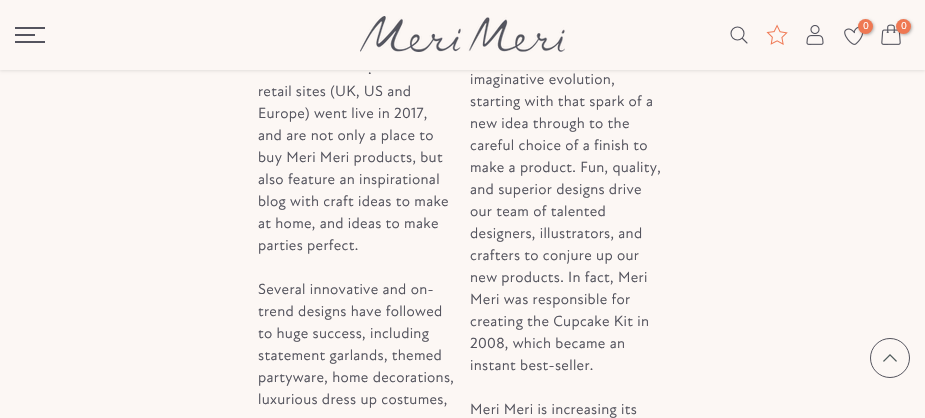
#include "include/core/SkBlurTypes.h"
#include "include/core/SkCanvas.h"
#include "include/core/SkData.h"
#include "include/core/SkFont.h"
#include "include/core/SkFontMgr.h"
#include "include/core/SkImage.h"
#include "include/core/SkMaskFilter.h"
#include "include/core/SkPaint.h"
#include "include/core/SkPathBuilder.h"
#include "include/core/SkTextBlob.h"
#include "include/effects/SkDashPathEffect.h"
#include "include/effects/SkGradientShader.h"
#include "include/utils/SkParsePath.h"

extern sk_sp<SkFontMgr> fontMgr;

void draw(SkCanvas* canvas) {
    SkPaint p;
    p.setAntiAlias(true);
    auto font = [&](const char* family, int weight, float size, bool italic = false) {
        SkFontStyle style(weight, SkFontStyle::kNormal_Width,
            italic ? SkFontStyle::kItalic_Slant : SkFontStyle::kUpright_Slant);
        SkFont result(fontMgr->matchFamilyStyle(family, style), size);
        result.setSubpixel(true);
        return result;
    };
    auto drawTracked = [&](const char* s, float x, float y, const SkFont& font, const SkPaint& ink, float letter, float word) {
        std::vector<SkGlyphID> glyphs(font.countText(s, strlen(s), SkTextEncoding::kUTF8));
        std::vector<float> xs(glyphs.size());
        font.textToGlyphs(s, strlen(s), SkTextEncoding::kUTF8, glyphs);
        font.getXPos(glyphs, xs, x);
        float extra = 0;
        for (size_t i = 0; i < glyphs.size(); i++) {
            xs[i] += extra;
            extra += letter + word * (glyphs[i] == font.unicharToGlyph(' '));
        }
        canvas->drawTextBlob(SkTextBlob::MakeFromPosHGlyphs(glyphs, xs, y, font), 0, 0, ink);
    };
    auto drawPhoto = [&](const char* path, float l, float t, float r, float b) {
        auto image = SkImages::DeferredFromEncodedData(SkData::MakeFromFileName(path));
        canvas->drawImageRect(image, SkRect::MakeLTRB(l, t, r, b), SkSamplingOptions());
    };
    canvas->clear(0xFFFCF7F4);
    p.setColor(0x1A000000);
    p.setMaskFilter(SkMaskFilter::MakeBlur(kNormal_SkBlurStyle, 1.5f));
    canvas->drawRect(SkRect::MakeLTRB(0, 1, 925, 71), p);
    p.setMaskFilter(nullptr);
    p.setColor(0xFFFCF7F4);
    canvas->drawRect(SkRect::MakeLTRB(0, 0, 925, 70), p);
    drawPhoto("media/1.png", 360, 16, 565, 52);
    p.setStyle(SkPaint::kStroke_Style);
    p.setStrokeWidth(1.1f);
    p.setColor(0xFF54545E);
    canvas->drawCircle(737.5f, 33.5f, 6.5f, p);
    p.setStrokeCap(SkPaint::kRound_Cap);
    canvas->drawPath(SkPathBuilder().moveTo(747, 43).lineTo(742.5f, 38.5f).detach(), p);
    drawPhoto("media/2.png", 766, 24, 788, 45);
    drawPhoto("media/3.png", 806, 25, 824, 45);
    drawPhoto("media/4.png", 844, 26, 864, 45);
    p.setStyle(SkPaint::kFill_Style);
    p.setColor(0x4D000000);
    p.setMaskFilter(SkMaskFilter::MakeBlur(kNormal_SkBlurStyle, 1.5f));
    canvas->drawRoundRect(SkRect::MakeLTRB(859, 20, 874, 35), 7.5f, 7.5f, p);
    p.setMaskFilter(nullptr);
    p.setColor(0xFFEF7853);
    canvas->drawCircle(865.5f, 26.5f, 7.5f, p);
    auto font1 = font("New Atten", 400, 10);
    p.setColor(0xFFFFFFFF);
    canvas->drawString("0", 863, 29, font1, p);
    drawPhoto("media/5.png", 881, 24, 901, 45);
    p.setColor(0x4D000000);
    p.setMaskFilter(SkMaskFilter::MakeBlur(kNormal_SkBlurStyle, 1.5f));
    canvas->drawRoundRect(SkRect::MakeLTRB(897, 20, 912, 35), 7.5f, 7.5f, p);
    p.setMaskFilter(nullptr);
    p.setColor(0xFFEF7853);
    canvas->drawCircle(903.5f, 26.5f, 7.5f, p);
    p.setColor(0xFFFFFFFF);
    canvas->drawString("0", 901, 29, font1, p);
    {
        const struct { float l, t, r, b; SkColor color; } items[] = {
            {15, 27, 45, 29, 0xFF54545E},
            {15, 34, 35, 36, 0xFF54545E},
            {15, 41, 45, 43, 0xFF54545E},
        };
        for (auto [l, t, r, b, color] : items) {
            p.setColor(color);
            canvas->drawRect(SkRect::MakeLTRB(l, t, r, b), p);
        }
    }
    auto font2 = font("New Atten", 400, 15);
    {
        const struct { const char* s; float x, y; } items[] = {
            {".", 368, 74},
            {"retail sites (UK, US and", 258, 96},
            {"Europe) went live in 2017,", 258, 118},
            {"and are not only a place to", 258, 140},
            {"buy Meri Meri products, but", 258, 162},
            {"also feature an inspirational", 258, 184},
            {"blog with craft ideas to make", 258, 206},
            {"at home, and ideas to make", 258, 228},
            {"parties perfect.", 258, 250},
            {"Several innovative and on-", 258, 294},
            {"trend designs have followed", 258, 316},
            {"to huge success, including", 258, 338},
            {"statement garlands, themed", 258, 360},
            {"partyware, home decorations,", 258, 382},
            {"luxurious dress up costumes,", 258, 404},
            {"imaginative evolution,", 470, 84},
            {"starting with that spark of a", 470, 106},
            {"new idea through to the", 470, 128},
            {"careful choice of a finish to", 470, 150},
            {"make a product. Fun, quality,", 470, 172},
            {"and superior designs drive", 470, 194},
            {"our team of talented", 470, 216},
            {"designers, illustrators, and", 470, 238},
            {"crafters to conjure up our", 470, 260},
            {"new products. In fact, Meri", 470, 282},
            {"Meri was responsible for", 470, 304},
            {"creating the Cupcake Kit in", 470, 326},
            {"2008, which became an", 470, 348},
            {"instant best-seller.", 470, 370},
            {"Meri Meri is increasing its", 470, 414},
        };
        for (auto [s, x, y] : items) {
            drawTracked(s, x, y, font2, p, 0.3f, 0);
        }
    }
    p.setStyle(SkPaint::kStroke_Style);
    p.setStrokeWidth(1);
    p.setStrokeCap(SkPaint::kButt_Cap);
    canvas->drawCircle(890, 358, 19.5f, p);
    drawPhoto("media/6.png", 883, 354, 897, 362);
}
